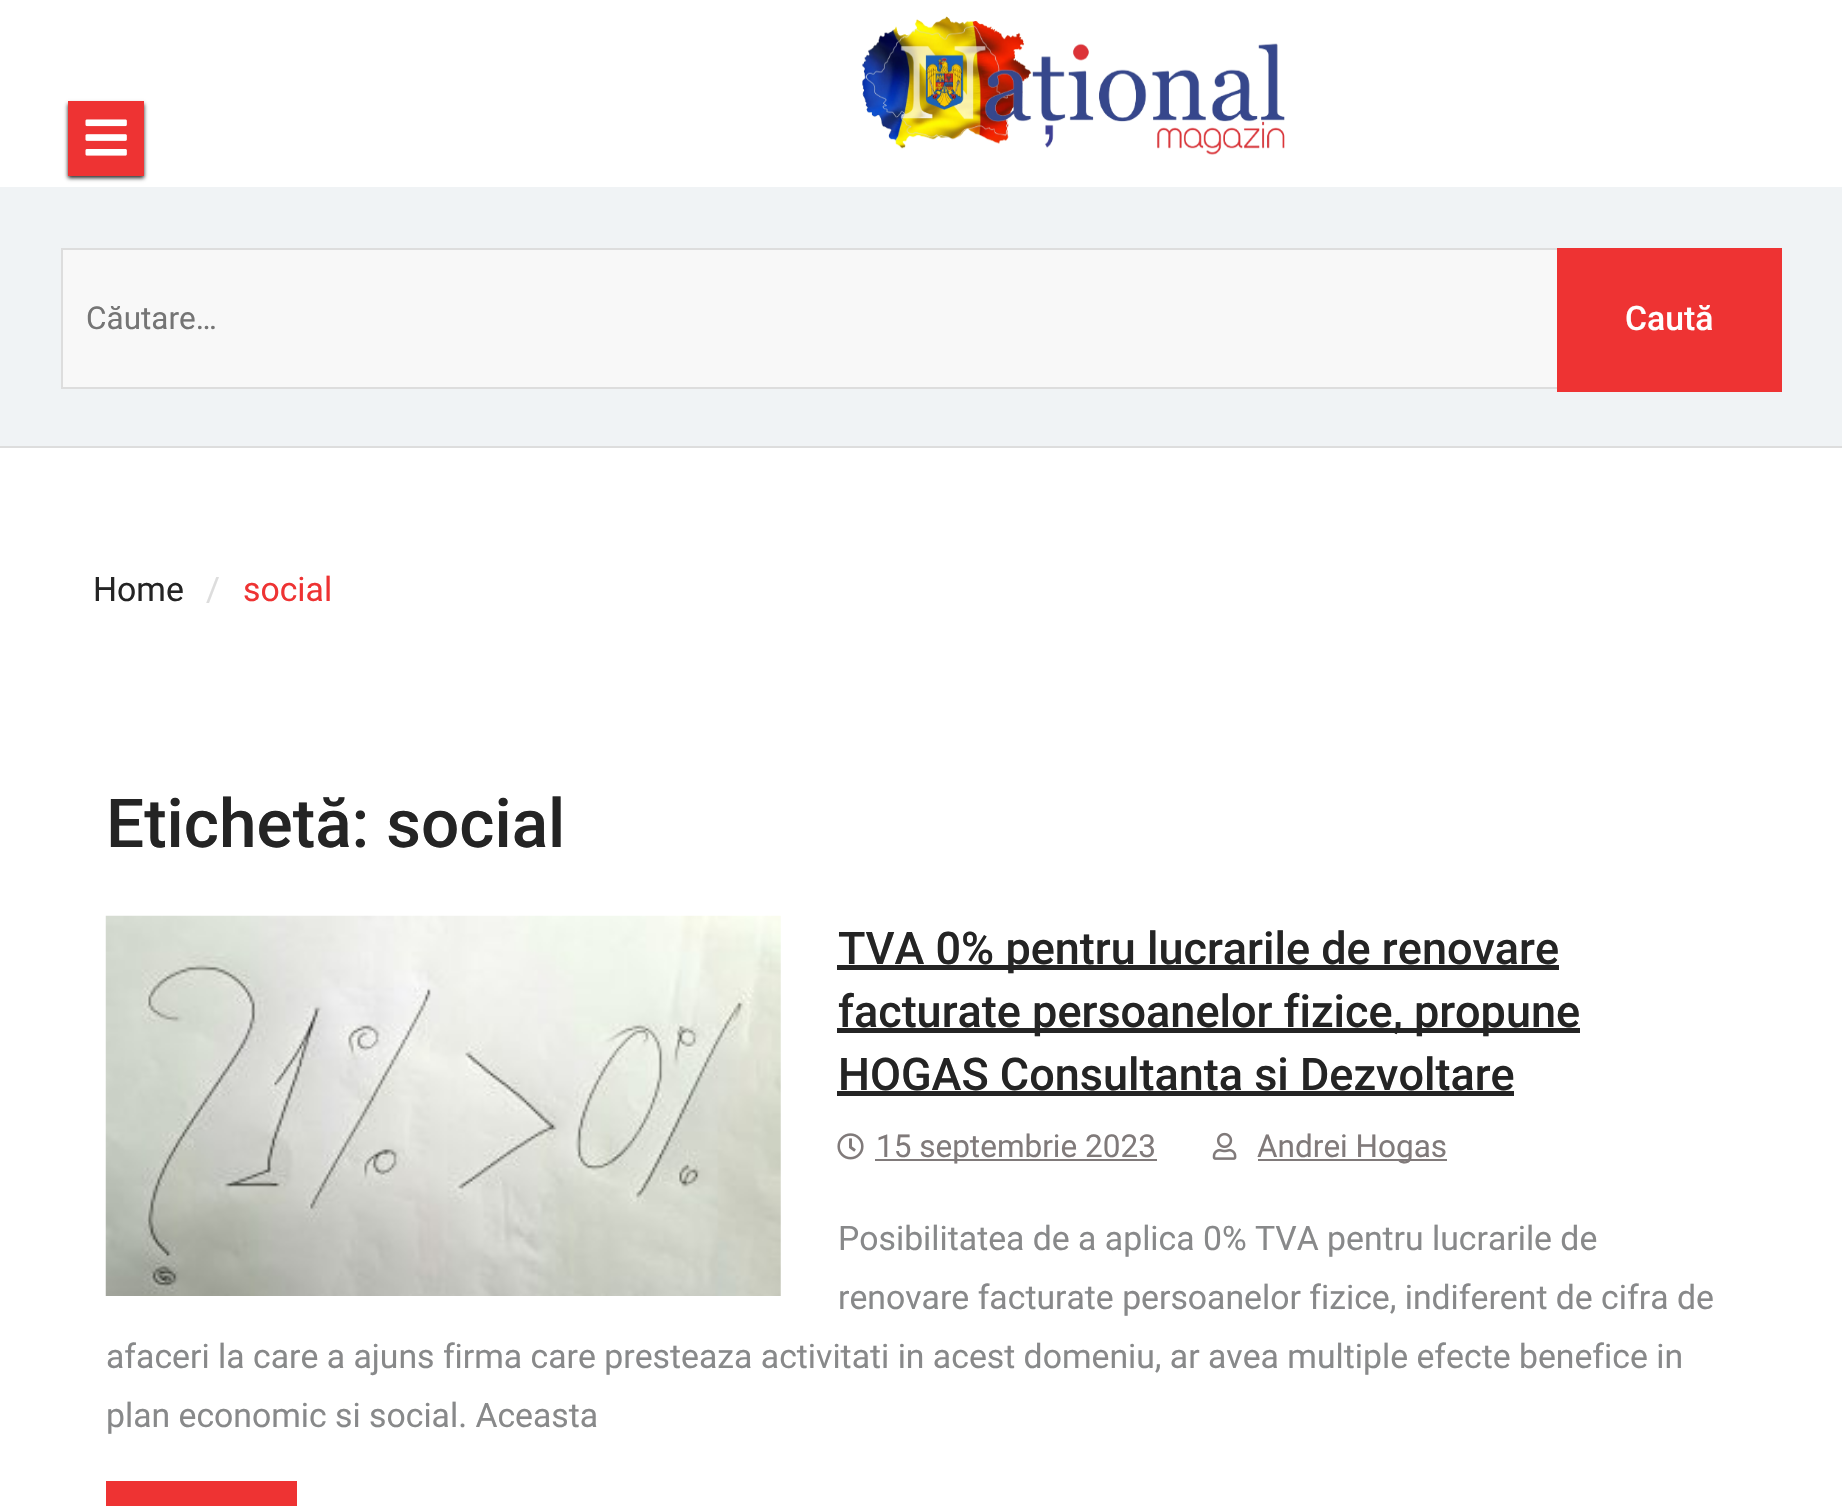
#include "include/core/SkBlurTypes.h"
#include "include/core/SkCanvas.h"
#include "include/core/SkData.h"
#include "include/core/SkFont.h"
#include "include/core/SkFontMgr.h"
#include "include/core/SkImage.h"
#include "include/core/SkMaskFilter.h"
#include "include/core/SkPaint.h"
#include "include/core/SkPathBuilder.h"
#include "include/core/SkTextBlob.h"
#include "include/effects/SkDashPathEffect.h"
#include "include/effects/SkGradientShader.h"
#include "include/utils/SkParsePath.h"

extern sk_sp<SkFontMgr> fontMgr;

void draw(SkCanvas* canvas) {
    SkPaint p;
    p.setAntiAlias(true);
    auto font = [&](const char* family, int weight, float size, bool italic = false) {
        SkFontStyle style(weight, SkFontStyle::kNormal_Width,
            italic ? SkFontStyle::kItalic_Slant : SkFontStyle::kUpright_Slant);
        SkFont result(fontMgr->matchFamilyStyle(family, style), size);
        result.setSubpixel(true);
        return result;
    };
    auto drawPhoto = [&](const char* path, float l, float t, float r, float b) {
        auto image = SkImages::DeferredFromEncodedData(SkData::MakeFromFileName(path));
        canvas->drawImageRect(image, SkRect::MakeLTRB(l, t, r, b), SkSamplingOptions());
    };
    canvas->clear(0xFFFFFFFF);
    p.setColor(0xFF242424);
    p.setMaskFilter(SkMaskFilter::MakeBlur(kNormal_SkBlurStyle, 2));
    canvas->drawRect(SkRect::MakeLTRB(68, 104, 144, 178), p);
    p.setMaskFilter(nullptr);
    p.setColor(0xFFEE3333);
    canvas->drawRect(SkRect::MakeLTRB(68, 101, 144, 176), p);
    drawPhoto("media/1.png", 85, 119, 127, 156);
    drawPhoto("media/2.png", 862, 16, 1285, 155);
    {
        const struct { float l, t, r, b; SkColor color; } items[] = {
            {0, 187, 1842, 446, 0xFFF0F3F5},
            {0, 446, 1842, 448, 0xFFDDDDDD},
            {63, 250, 1557, 387, 0xFFF8F8F8},
        };
        for (auto [l, t, r, b, color] : items) {
            p.setColor(color);
            canvas->drawRect(SkRect::MakeLTRB(l, t, r, b), p);
        }
    }
    p.setStyle(SkPaint::kStroke_Style);
    p.setStrokeWidth(2);
    p.setColor(0xFFDDDDDD);
    canvas->drawRect(SkRect::MakeLTRB(62, 249, 1781, 388), p);
    auto font1 = font("Roboto", 400, 31.5f);
    p.setStyle(SkPaint::kFill_Style);
    p.setColor(0xFF757575);
    canvas->drawString("Căutare…", 86, 329, font1, p);
    p.setColor(0xFFEE3333);
    canvas->drawRect(SkRect::MakeLTRB(1557, 248, 1782, 392), p);
    auto font2 = font("Roboto", 500, 33.75f);
    p.setColor(0xFFFFFFFF);
    canvas->drawString("Caută", 1625, 330, font2, p);
    auto font3 = font("Roboto", 400, 33.75f);
    p.setColor(0xFF242424);
    canvas->drawString("Home", 93, 601, font3, p);
    p.setColor(0xFFDDDDDD);
    canvas->drawString("/", 206, 601, font3, p);
    p.setColor(0xFFEE3333);
    canvas->drawString("social", 243, 601, font3, p);
    auto font4 = font("Roboto", 500, 67.5f);
    p.setColor(0xFF242424);
    canvas->drawString("Etichetă: social", 106, 847, font4, p);
    drawPhoto("media/3.png", 105, 915, 781, 1296);
    canvas->drawRect(SkRect::MakeLTRB(837, 965, 1559, 970), p);
    auto font5 = font("Roboto", 500, 45);
    canvas->drawString("TVA 0% pentru lucrarile de renovare", 838, 964, font5, p);
    canvas->drawRect(SkRect::MakeLTRB(837, 1028, 1580, 1033), p);
    canvas->drawString("facturate persoanelor fizice, propune", 838, 1027, font5, p);
    canvas->drawString("HOGAS Consultanta si Dezvoltare", 838, 1090, font5, p);
    canvas->drawRect(SkRect::MakeLTRB(837, 1091, 1514, 1096), p);
    drawPhoto("media/4.png", 837, 1133, 864, 1160);
    p.setColor(0xFF807A7A);
    canvas->drawRect(SkRect::MakeLTRB(875, 1159, 1157, 1161), p);
    canvas->drawString("15 septembrie 2023", 876, 1157, font1, p);
    drawPhoto("media/5.png", 1212, 1132, 1237, 1160);
    canvas->drawRect(SkRect::MakeLTRB(1258, 1159, 1447, 1161), p);
    canvas->drawString("Andrei Hogas", 1257, 1157, font1, p);
    p.setColor(0xFF88898A);
    {
        const struct { const char* s; float x, y; } items[] = {
            {"Posibilitatea de a aplica 0% TVA pentru lucrarile de", 838, 1250},
            {"renovare facturate persoanelor fizice, indiferent de cifra de", 838, 1309},
            {"afaceri la care a ajuns firma care presteaza activitati in acest domeniu, ar avea multiple efecte benefice in", 106, 1368},
            {"plan economic si social. Aceasta", 106, 1427},
        };
        for (auto [s, x, y] : items) {
            canvas->drawString(s, x, y, font3, p);
        }
    }
    p.setColor(0xFFEE3333);
    canvas->drawRect(SkRect::MakeLTRB(106, 1481, 297, 1506), p);
}
